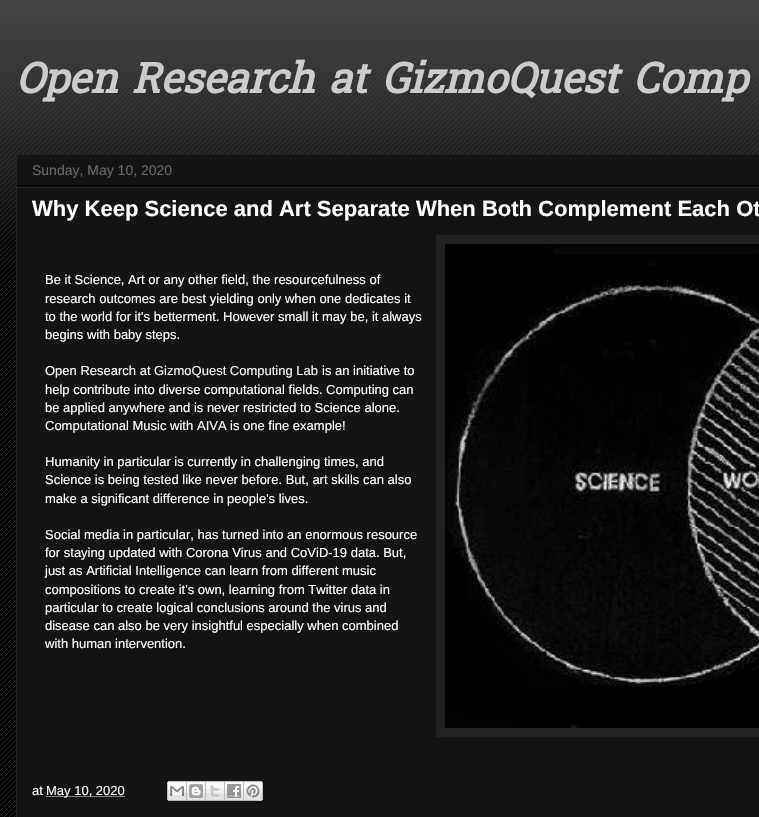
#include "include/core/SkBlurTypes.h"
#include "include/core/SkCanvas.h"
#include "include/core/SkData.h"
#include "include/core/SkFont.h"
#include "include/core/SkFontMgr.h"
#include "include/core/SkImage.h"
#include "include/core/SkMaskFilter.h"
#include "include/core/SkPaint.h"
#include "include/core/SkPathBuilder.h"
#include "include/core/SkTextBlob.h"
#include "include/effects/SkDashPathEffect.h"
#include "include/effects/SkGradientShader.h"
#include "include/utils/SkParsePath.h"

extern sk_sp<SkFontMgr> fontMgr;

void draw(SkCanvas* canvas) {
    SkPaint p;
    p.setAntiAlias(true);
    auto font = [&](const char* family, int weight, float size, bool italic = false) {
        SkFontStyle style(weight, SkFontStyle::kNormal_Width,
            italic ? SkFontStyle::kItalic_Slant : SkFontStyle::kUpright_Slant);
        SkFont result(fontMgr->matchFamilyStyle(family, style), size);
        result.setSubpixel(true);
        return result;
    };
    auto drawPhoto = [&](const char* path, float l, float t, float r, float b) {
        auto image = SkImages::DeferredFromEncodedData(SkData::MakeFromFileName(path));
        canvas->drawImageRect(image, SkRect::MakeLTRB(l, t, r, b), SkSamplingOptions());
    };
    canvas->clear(0xFF000000);
    drawPhoto("media/1.png", 0, 13, 759, 817);
    drawPhoto("media/2.png", 0, 0, 759, 268);
    auto font1 = font("Hanuman", 700, 42, true);
    p.setColor(0xFFCCCCCC);
    canvas->drawString("Open Research at GizmoQuest Comp", 16, 93, font1, p);
    p.setColor(0xFF141414);
    canvas->drawRect(SkRect::MakeLTRB(16.5f, 154.5f, 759.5f, 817.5f), p);
    p.setStyle(SkPaint::kStroke_Style);
    p.setStrokeWidth(1);
    p.setColor(0xFF222222);
    canvas->drawRect(SkRect::MakeLTRB(16.5f, 154.5f, 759.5f, 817.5f), p);
    p.setStyle(SkPaint::kFill_Style);
    p.setColor(0xFF000000);
    canvas->drawRect(SkRect::MakeLTRB(17, 185, 759, 186), p);
    auto font2 = font("Liberation Sans", 400, 14);
    p.setColor(0xFF666666);
    canvas->drawString("Sunday, May 10, 2020", 32, 175, font2, p);
    p.setColor(0xFF222222);
    canvas->drawRect(SkRect::MakeLTRB(17, 187, 759, 188), p);
    auto font3 = font("Liberation Sans", 700, 22);
    p.setColor(0xFFFFFFFF);
    canvas->drawString("Why Keep Science and Art Separate When Both Complement Each Ot", 32, 216, font3, p);
    auto font4 = font("Liberation Sans", 400, 13);
    {
        const struct { const char* s; float x, y; } items[] = {
            {"Be it Science, Art or any other field, the resourcefulness of", 45, 284},
            {"research outcomes are best yielding only when one dedicates it", 45, 303},
            {"to the world for it's betterment. However small it may be, it always", 45, 321},
            {"begins with baby steps.", 45, 339},
        };
        for (auto [s, x, y] : items) {
            canvas->drawString(s, x, y, font4, p);
        }
    }
    p.setColor(0xFF222222);
    canvas->drawRect(SkRect::MakeLTRB(436, 235, 759, 737), p);
    drawPhoto("media/3.png", 445, 244, 759, 728);
    p.setColor(0xFFFFFFFF);
    canvas->drawString("Open Research at", 45, 375, font4, p);
    p.setColor(0xFFF3F3F3);
    canvas->drawString("GizmoQuest Computing Lab", 154, 375, font4, p);
    p.setColor(0xFFFFFFFF);
    {
        const struct { const char* s; float x, y; } items[] = {
            {"is an initiative to", 322, 375},
            {"help contribute into diverse computational fields. Computing can", 45, 394},
            {"be applied anywhere and is never restricted to Science alone.", 45, 412},
            {"Computational Music with", 45, 430},
        };
        for (auto [s, x, y] : items) {
            canvas->drawString(s, x, y, font4, p);
        }
    }
    p.setColor(0xFFF3F3F3);
    canvas->drawString("AIVA", 197, 430, font4, p);
    p.setColor(0xFFFFFFFF);
    {
        const struct { const char* s; float x, y; } items[] = {
            {"is one fine example!", 230, 430},
            {"Humanity in particular is currently in challenging times, and", 45, 466},
            {"Science is being tested like never before. But, art skills can also", 45, 484},
            {"make a significant difference in people's lives.", 45, 503},
            {"Social media in particular, has turned into an enormous resource", 45, 539},
            {"for staying updated with Corona Virus and CoViD-19 data. But,", 45, 557},
            {"just as Artificial Intelligence can learn from different music", 45, 575},
            {"compositions to create it's own, learning from Twitter data in", 45, 594},
            {"particular to create logical conclusions around the virus and", 45, 612},
            {"disease can also be very insightful especially when combined", 45, 630},
            {"with human intervention.", 45, 648},
            {"at", 32, 795},
        };
        for (auto [s, x, y] : items) {
            canvas->drawString(s, x, y, font4, p);
        }
    }
    p.setStyle(SkPaint::kStroke_Style);
    p.setColor(0xFFF3F3F3);
    p.setPathEffect(SkDashPathEffect::Make({{1, 1}}, 0));
    canvas->drawPath(SkPathBuilder().moveTo(46.5f, 796.5f).lineTo(125, 796.5f).detach(), p);
    p.setPathEffect(nullptr);
    p.setStyle(SkPaint::kFill_Style);
    canvas->drawString("May 10, 2020", 46, 795, font4, p);
    drawPhoto("media/4.png", 167, 781, 187, 801);
    drawPhoto("media/5.png", 187, 781, 206, 801);
    drawPhoto("media/6.png", 206, 781, 225, 801);
    drawPhoto("media/7.png", 225, 781, 244, 801);
    drawPhoto("media/8.png", 244, 781, 263, 801);
}
